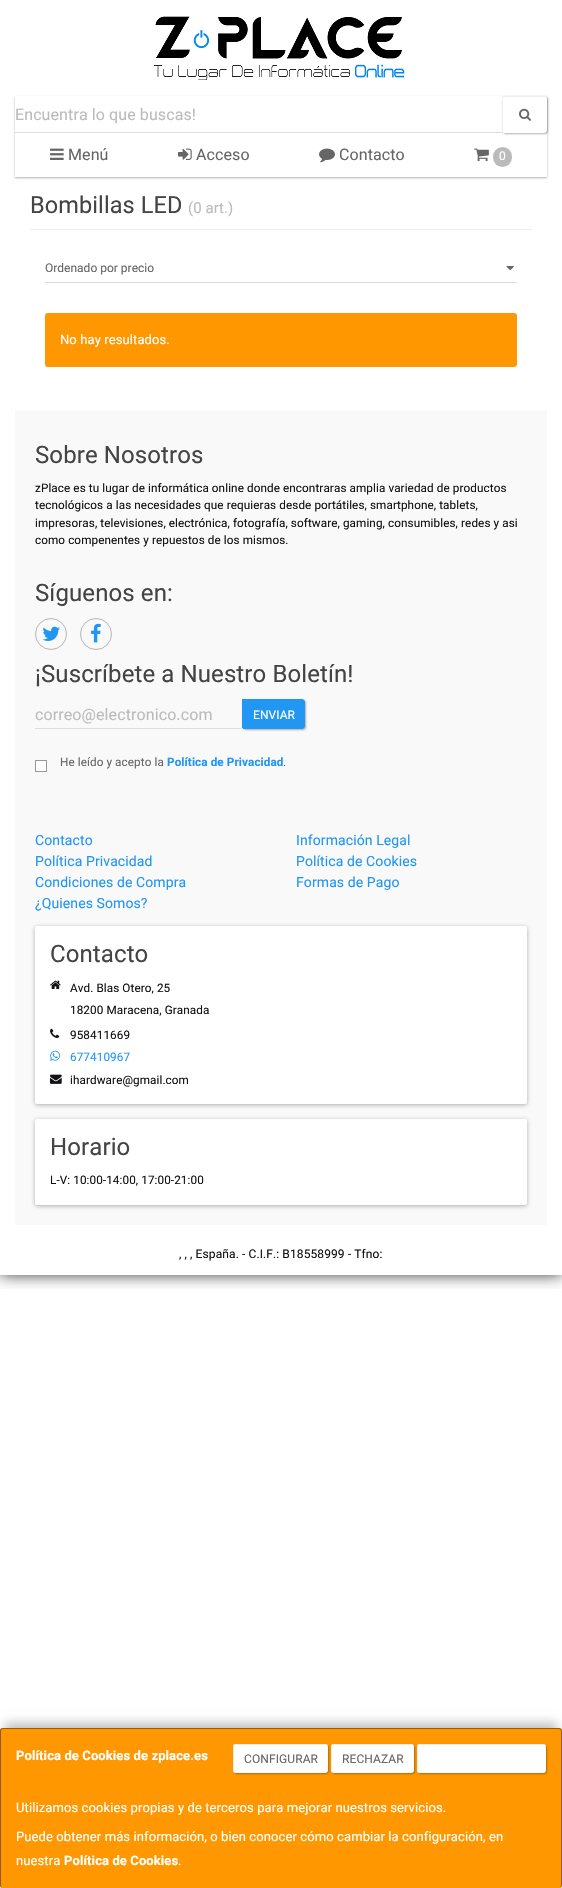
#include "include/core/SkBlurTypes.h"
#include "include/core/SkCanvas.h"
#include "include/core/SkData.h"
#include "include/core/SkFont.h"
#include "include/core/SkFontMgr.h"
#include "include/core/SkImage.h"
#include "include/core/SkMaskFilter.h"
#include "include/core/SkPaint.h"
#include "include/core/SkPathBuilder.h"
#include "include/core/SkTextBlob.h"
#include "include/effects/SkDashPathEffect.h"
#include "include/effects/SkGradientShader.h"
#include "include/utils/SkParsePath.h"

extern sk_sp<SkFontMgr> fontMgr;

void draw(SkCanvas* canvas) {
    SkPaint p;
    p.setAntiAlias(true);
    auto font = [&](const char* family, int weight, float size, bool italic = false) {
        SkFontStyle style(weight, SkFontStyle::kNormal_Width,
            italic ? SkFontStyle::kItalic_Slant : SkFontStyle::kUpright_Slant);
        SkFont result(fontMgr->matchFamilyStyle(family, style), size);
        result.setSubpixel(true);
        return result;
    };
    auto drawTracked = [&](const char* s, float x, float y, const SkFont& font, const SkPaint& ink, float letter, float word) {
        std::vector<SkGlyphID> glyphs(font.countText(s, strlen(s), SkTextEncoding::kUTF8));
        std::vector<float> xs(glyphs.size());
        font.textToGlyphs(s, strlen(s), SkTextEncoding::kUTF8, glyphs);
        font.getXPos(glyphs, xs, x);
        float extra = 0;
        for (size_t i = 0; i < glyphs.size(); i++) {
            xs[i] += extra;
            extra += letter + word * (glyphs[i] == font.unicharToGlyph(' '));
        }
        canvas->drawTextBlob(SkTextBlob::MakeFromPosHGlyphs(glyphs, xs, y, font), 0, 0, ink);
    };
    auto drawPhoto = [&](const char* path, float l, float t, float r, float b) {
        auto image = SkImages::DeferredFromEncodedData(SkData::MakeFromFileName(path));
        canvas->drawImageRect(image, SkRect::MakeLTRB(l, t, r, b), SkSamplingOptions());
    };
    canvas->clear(0xFFFFFFFF);
    canvas->save();
    canvas->clipRect(SkRect::MakeLTRB(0, 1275, 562, 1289));
    p.setColor(0xBF000000);
    p.setMaskFilter(SkMaskFilter::MakeBlur(kNormal_SkBlurStyle, 7.5f));
    canvas->drawRect(SkRect::MakeLTRB(0, 0, 562, 1275), p);
    p.setMaskFilter(nullptr);
    canvas->restore();
    drawPhoto("media/1.png", 154, 16, 405, 80);
    canvas->save();
    canvas->clipPath(SkPathBuilder(SkPathFillType::kEvenOdd).moveTo(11, 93).lineTo(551, 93).lineTo(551, 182).lineTo(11, 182).close().moveTo(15, 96).lineTo(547, 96).lineTo(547, 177).lineTo(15, 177).close().detach(), true);
    p.setColor(0x4D000000);
    p.setMaskFilter(SkMaskFilter::MakeBlur(kNormal_SkBlurStyle, 1));
    canvas->drawRect(SkRect::MakeLTRB(15, 97, 547, 178), p);
    p.setMaskFilter(nullptr);
    canvas->restore();
    p.setMaskFilter(SkMaskFilter::MakeBlur(kNormal_SkBlurStyle, 1));
    canvas->drawRoundRect(SkRect::MakeLTRB(503, 97, 548, 134), 3, 3, p);
    p.setMaskFilter(nullptr);
    p.setColor(0xFFFFFFFF);
    canvas->drawPath(SkPathBuilder().moveTo(502, 96).lineTo(544, 96).cubicTo(545.5f, 96, 547, 97.5f, 547, 99).lineTo(547, 130).cubicTo(547, 131.5f, 545.5f, 133, 544, 133).lineTo(502, 133).close().detach(), p);
    {
        const struct { float l, t, r, b; SkColor color; } items[] = {
            {502, 96, 546, 97, 0xFFEEEEEE},
            {502, 96, 503, 133, 0xFFEEEEEE},
            {15, 132, 503, 133, 0xFFDDDDDD},
        };
        for (auto [l, t, r, b, color] : items) {
            p.setColor(color);
            canvas->drawRect(SkRect::MakeLTRB(l, t, r, b), p);
        }
    }
    auto font1 = font("Roboto", 400, 16);
    p.setColor(0xFFBBBBBB);
    drawTracked("Encuentra lo que buscas!", 15, 120, font1, p, 0.1f, 0);
    drawPhoto("media/2.png", 519, 108, 531, 121);
    drawPhoto("media/3.png", 50, 148, 64, 160);
    p.setColor(0xFF666666);
    drawTracked("Menú", 68, 160, font1, p, 0.1f, 0);
    drawPhoto("media/4.png", 178, 148, 192, 160);
    drawTracked("Acceso", 196, 160, font1, p, 0.1f, 0);
    drawPhoto("media/5.png", 319, 148, 335, 163);
    drawTracked("Contacto", 339, 160, font1, p, 0.1f, 0);
    drawPhoto("media/6.png", 474, 148, 489, 162);
    p.setColor(0xFFBBBBBB);
    canvas->drawRoundRect(SkRect::MakeLTRB(493, 147, 512, 167), 9.5f, 9.5f, p);
    auto font2 = font("Roboto", 400, 12);
    p.setColor(0xFFFFFFFF);
    drawTracked("0", 499, 160, font2, p, 0.1f, 0);
    p.setColor(0xFFEEEEEE);
    canvas->drawRect(SkRect::MakeLTRB(30, 229, 532, 230), p);
    auto font3 = font("Roboto", 400, 23.5f);
    p.setColor(0xFF444444);
    drawTracked("Bombillas LED", 30, 213, font3, p, 0.1f, 0);
    auto font4 = font("Roboto", 400, 15);
    p.setColor(0xFFBBBBBB);
    drawTracked("(0 art.)", 188, 213, font4, p, 0.1f, 0);
    drawPhoto("media/7.png", 506, 266, 514, 271);
    p.setColor(0xFFDDDDDD);
    canvas->drawRect(SkRect::MakeLTRB(45, 282, 517, 283), p);
    p.setColor(0xFF666666);
    canvas->drawString("Ordenado por precio", 45, 272, font2, p);
    p.setColor(0xFFFF9800);
    canvas->drawRoundRect(SkRect::MakeLTRB(45, 313, 517, 367), 3, 3, p);
    auto font5 = font("Roboto", 400, 13);
    p.setColor(0xFFFFFFFF);
    drawTracked("No hay resultados.", 60, 344, font5, p, 0.1f, 0);
    p.setColor(0xFFF9F9F9);
    canvas->drawRect(SkRect::MakeLTRB(15, 410, 547, 1225), p);
    auto font6 = font("Roboto", 400, 24);
    p.setColor(0xFF444444);
    drawTracked("Sobre Nosotros", 35, 463, font6, p, 0.1f, 0);
    auto font7 = font("Roboto", 400, 11.7f);
    p.setColor(0xFF121114);
    {
        const struct { const char* s; float x, y; } items[] = {
            {"zPlace es tu lugar de informática online donde encontraras amplia variedad de productos", 35, 492},
            {"tecnológicos a las necesidades que requieras desde portátiles, smartphone, tablets,", 35, 509},
            {"impresoras, televisiones, electrónica, fotografía, software, gaming, consumibles, redes y asi", 35, 527},
            {"como compenentes y repuestos de los mismos.", 35, 544},
        };
        for (auto [s, x, y] : items) {
            drawTracked(s, x, y, font7, p, 0.1f, 0);
        }
    }
    p.setColor(0xFF444444);
    drawTracked("Síguenos en:", 35, 601, font6, p, 0.1f, 0);
    p.setStyle(SkPaint::kStroke_Style);
    p.setStrokeWidth(1);
    p.setColor(0xFFB5B5B5);
    canvas->drawCircle(51, 634, 15.5f, p);
    drawPhoto("media/8.png", 42, 626, 60, 641);
    canvas->drawCircle(96, 634, 15.5f, p);
    drawPhoto("media/9.png", 91, 623, 101, 643);
    p.setStyle(SkPaint::kFill_Style);
    p.setColor(0xFF444444);
    drawTracked("¡Suscríbete a Nuestro Boletín!", 35, 682, font6, p, 0.1f, 0);
    p.setColor(0x4D000000);
    p.setMaskFilter(SkMaskFilter::MakeBlur(kNormal_SkBlurStyle, 1));
    canvas->drawRoundRect(SkRect::MakeLTRB(243, 700, 306, 730), 3, 3, p);
    p.setMaskFilter(nullptr);
    p.setColor(0xFF2196F3);
    canvas->drawPath(SkPathBuilder().moveTo(242, 699).lineTo(302, 699).cubicTo(303.5f, 699, 305, 700.5f, 305, 702).lineTo(305, 726).cubicTo(305, 727.5f, 303.5f, 729, 302, 729).lineTo(242, 729).close().detach(), p);
    p.setColor(0xFFDDDDDD);
    canvas->drawRect(SkRect::MakeLTRB(35, 728, 243, 729), p);
    p.setColor(0xFFBBBBBB);
    drawTracked("correo@electronico.com", 35, 720, font1, p, 0.1f, 0);
    p.setColor(0xFFFFFFFF);
    drawTracked("ENVIAR", 253, 719, font2, p, 0.1f, 0);
    canvas->drawRect(SkRect::MakeLTRB(35.5f, 760.5f, 46.5f, 771.5f), p);
    p.setStyle(SkPaint::kStroke_Style);
    p.setColor(0xFF999999);
    canvas->drawRect(SkRect::MakeLTRB(35.5f, 760.5f, 46.5f, 771.5f), p);
    p.setStyle(SkPaint::kFill_Style);
    p.setColor(0xFF666666);
    drawTracked("He leído y acepto la", 60, 766, font7, p, 0.1f, 0);
    auto font8 = font("Roboto", 700, 11.7f);
    p.setColor(0xFF2196F3);
    drawTracked("Política de Privacidad", 167, 766, font8, p, 0.1f, 0);
    p.setColor(0xFF666666);
    drawTracked(".", 283, 766, font7, p, 0.1f, 0);
    auto font9 = font("Roboto", 400, 14);
    p.setColor(0xFF2196F3);
    {
        const struct { const char* s; float x, y; } items[] = {
            {"Contacto", 35, 845},
            {"Información Legal", 296, 845},
            {"Política Privacidad", 35, 866},
            {"Política de Cookies", 296, 866},
            {"Condiciones de Compra", 35, 887},
            {"Formas de Pago", 296, 887},
            {"¿Quienes Somos?", 35, 908},
        };
        for (auto [s, x, y] : items) {
            drawTracked(s, x, y, font9, p, 0.1f, 0);
        }
    }
    p.setColor(0x4D000000);
    p.setMaskFilter(SkMaskFilter::MakeBlur(kNormal_SkBlurStyle, 2));
    canvas->drawRoundRect(SkRect::MakeLTRB(35, 927, 527, 1105), 2, 2, p);
    p.setMaskFilter(nullptr);
    p.setColor(0xFFFFFFFF);
    canvas->drawRoundRect(SkRect::MakeLTRB(35, 926, 527, 1104), 2, 2, p);
    p.setColor(0xFF444444);
    drawTracked("Contacto", 50, 962, font6, p, 0.1f, 0);
    drawPhoto("media/10.png", 50, 980, 61, 989);
    p.setColor(0xFF121114);
    drawTracked("Avd. Blas Otero, 25", 70, 992, font7, p, 0.1f, 0);
    drawTracked("18200 Maracena, Granada", 70, 1014, font7, p, 0.1f, 0);
    drawPhoto("media/11.png", 50, 1028, 60, 1038);
    drawTracked("958411669", 70, 1039, font7, p, 0.1f, 0);
    drawPhoto("media/12.png", 50, 1050, 60, 1061);
    p.setColor(0xFF2196F3);
    drawTracked("677410967", 70, 1061, font7, p, 0.1f, 0);
    drawPhoto("media/13.png", 50, 1074, 62, 1084);
    p.setColor(0xFF121114);
    drawTracked("ihardware@gmail.com", 70, 1084, font7, p, 0.1f, 0);
    p.setColor(0x4D000000);
    p.setMaskFilter(SkMaskFilter::MakeBlur(kNormal_SkBlurStyle, 2));
    canvas->drawRoundRect(SkRect::MakeLTRB(35, 1120, 527, 1206), 2, 2, p);
    p.setMaskFilter(nullptr);
    p.setColor(0xFFFFFFFF);
    canvas->drawRoundRect(SkRect::MakeLTRB(35, 1119, 527, 1205), 2, 2, p);
    p.setColor(0xFF444444);
    drawTracked("Horario", 50, 1155, font6, p, 0.1f, 0);
    p.setColor(0xFF121114);
    drawTracked("L-V: 10:00-14:00, 17:00-21:00", 50, 1184, font7, p, 0.1f, 0);
    drawTracked(", , , España. - C.I.F.: B18558999 - Tfno:", 179, 1258, font2, p, 0.1f, 0);
    p.setColor(0x40000000);
    p.setMaskFilter(SkMaskFilter::MakeBlur(kNormal_SkBlurStyle, 5));
    canvas->drawRect(SkRect::MakeLTRB(5, 1723, 557, 1873), p);
    p.setMaskFilter(nullptr);
    p.setColor(0xFFFF9800);
    canvas->drawRoundRect(SkRect::MakeLTRB(0, 1728, 562, 1888), 3, 3, p);
    p.setColor(0x66000000);
    canvas->drawPath(SkPathBuilder(SkPathFillType::kEvenOdd).moveTo(3, 1728).lineTo(559, 1728).cubicTo(561, 1728, 562, 1729, 562, 1731).lineTo(562, 1885).cubicTo(562, 1887, 561, 1888, 559, 1888).lineTo(3, 1888).cubicTo(1, 1888, 0, 1887, 0, 1885).lineTo(0, 1731).cubicTo(0, 1729, 1, 1728, 3, 1728).close().moveTo(3, 1729).lineTo(559, 1729).cubicTo(560, 1729, 561, 1730, 561, 1731).lineTo(561, 1885).cubicTo(561, 1887, 560, 1888, 559, 1888).lineTo(3, 1888).cubicTo(2, 1888, 1, 1887, 1, 1885).lineTo(1, 1731).cubicTo(1, 1730, 2, 1729, 3, 1729).close().detach(), p);
    auto font10 = font("Roboto", 700, 13);
    p.setColor(0xFFFFFFFF);
    drawTracked("Política de Cookies de zplace.es", 16, 1760, font10, p, 0.1f, 0);
    p.setColor(0x4D000000);
    p.setMaskFilter(SkMaskFilter::MakeBlur(kNormal_SkBlurStyle, 1));
    canvas->drawRoundRect(SkRect::MakeLTRB(234, 1745, 329, 1774), 3, 3, p);
    p.setMaskFilter(nullptr);
    p.setColor(0xFFFFFFFF);
    canvas->drawRoundRect(SkRect::MakeLTRB(233, 1744, 328, 1773), 3, 3, p);
    p.setColor(0xFFEEEEEE);
    canvas->drawPath(SkPathBuilder(SkPathFillType::kEvenOdd).moveTo(236, 1744).lineTo(325, 1744).cubicTo(327, 1744, 328, 1745, 328, 1747).lineTo(328, 1770).cubicTo(328, 1772, 327, 1773, 325, 1773).lineTo(236, 1773).cubicTo(234, 1773, 233, 1772, 233, 1770).lineTo(233, 1747).cubicTo(233, 1745, 234, 1744, 236, 1744).close().moveTo(236, 1745).lineTo(325, 1745).cubicTo(327, 1745, 328, 1746, 328, 1747).lineTo(328, 1770).cubicTo(328, 1772, 327, 1773, 325, 1773).lineTo(236, 1773).cubicTo(235, 1773, 234, 1772, 234, 1770).lineTo(234, 1747).cubicTo(234, 1746, 235, 1745, 236, 1745).close().detach(), p);
    p.setColor(0xFF666666);
    drawTracked("CONFIGURAR", 244, 1763, font2, p, 0.1f, 0);
    p.setColor(0x4D000000);
    p.setMaskFilter(SkMaskFilter::MakeBlur(kNormal_SkBlurStyle, 1));
    canvas->drawRoundRect(SkRect::MakeLTRB(332, 1745, 415, 1774), 3, 3, p);
    p.setMaskFilter(nullptr);
    p.setColor(0xFFFFFFFF);
    canvas->drawRoundRect(SkRect::MakeLTRB(331, 1744, 414, 1773), 3, 3, p);
    p.setColor(0xFFEEEEEE);
    canvas->drawPath(SkPathBuilder(SkPathFillType::kEvenOdd).moveTo(334, 1744).lineTo(411, 1744).cubicTo(413, 1744, 414, 1745, 414, 1747).lineTo(414, 1770).cubicTo(414, 1772, 413, 1773, 411, 1773).lineTo(334, 1773).cubicTo(332, 1773, 331, 1772, 331, 1770).lineTo(331, 1747).cubicTo(331, 1745, 332, 1744, 334, 1744).close().moveTo(334, 1745).lineTo(411, 1745).cubicTo(413, 1745, 414, 1746, 414, 1747).lineTo(414, 1770).cubicTo(414, 1772, 413, 1773, 411, 1773).lineTo(334, 1773).cubicTo(333, 1773, 332, 1772, 332, 1770).lineTo(332, 1747).cubicTo(332, 1746, 333, 1745, 334, 1745).close().detach(), p);
    p.setColor(0xFF666666);
    drawTracked("RECHAZAR", 342, 1763, font2, p, 0.1f, 0);
    p.setColor(0x4D000000);
    p.setMaskFilter(SkMaskFilter::MakeBlur(kNormal_SkBlurStyle, 1));
    canvas->drawRoundRect(SkRect::MakeLTRB(418, 1745, 547, 1774), 3, 3, p);
    p.setMaskFilter(nullptr);
    p.setColor(0xFFFFFFFF);
    canvas->drawRoundRect(SkRect::MakeLTRB(417, 1744, 546, 1773), 3, 3, p);
    p.setColor(0xFFEEEEEE);
    canvas->drawPath(SkPathBuilder(SkPathFillType::kEvenOdd).moveTo(420, 1744).lineTo(543, 1744).cubicTo(545, 1744, 546, 1745, 546, 1747).lineTo(546, 1770).cubicTo(546, 1772, 545, 1773, 543, 1773).lineTo(420, 1773).cubicTo(418, 1773, 417, 1772, 417, 1770).lineTo(417, 1747).cubicTo(417, 1745, 418, 1744, 420, 1744).close().moveTo(420, 1745).lineTo(543, 1745).cubicTo(545, 1745, 546, 1746, 546, 1747).lineTo(546, 1770).cubicTo(546, 1772, 545, 1773, 543, 1773).lineTo(420, 1773).cubicTo(419, 1773, 418, 1772, 418, 1770).lineTo(418, 1747).cubicTo(418, 1746, 419, 1745, 420, 1745).close().detach(), p);
    p.setColor(0xFFFFFFFF);
    {
        const struct { const char* s; float x, y; } items[] = {
            {"Utilizamos cookies propias y de terceros para mejorar nuestros servicios.", 16, 1812},
            {"Puede obtener más información, o bien conocer cómo cambiar la configuración, en", 16, 1841},
            {"nuestra", 16, 1865},
        };
        for (auto [s, x, y] : items) {
            drawTracked(s, x, y, font5, p, 0.1f, 0);
        }
    }
    drawTracked("Política de Cookies", 64, 1865, font10, p, 0.1f, 0);
    drawTracked(".", 178, 1865, font5, p, 0.1f, 0);
}
